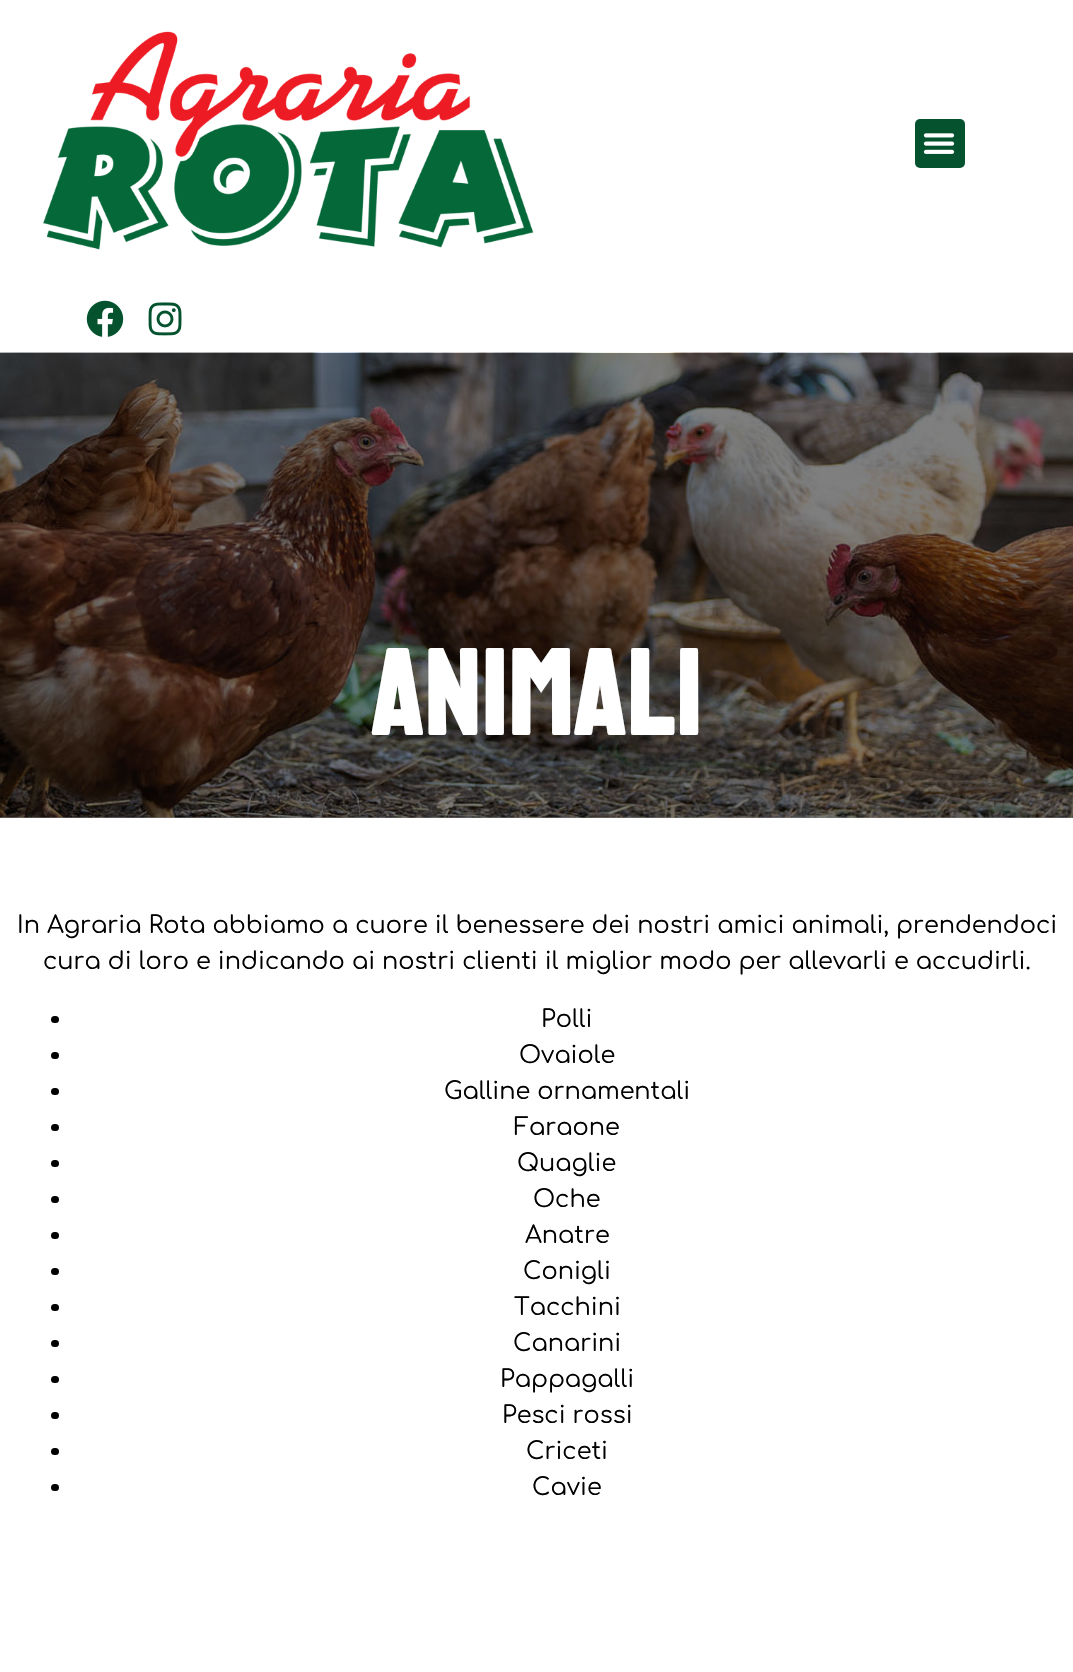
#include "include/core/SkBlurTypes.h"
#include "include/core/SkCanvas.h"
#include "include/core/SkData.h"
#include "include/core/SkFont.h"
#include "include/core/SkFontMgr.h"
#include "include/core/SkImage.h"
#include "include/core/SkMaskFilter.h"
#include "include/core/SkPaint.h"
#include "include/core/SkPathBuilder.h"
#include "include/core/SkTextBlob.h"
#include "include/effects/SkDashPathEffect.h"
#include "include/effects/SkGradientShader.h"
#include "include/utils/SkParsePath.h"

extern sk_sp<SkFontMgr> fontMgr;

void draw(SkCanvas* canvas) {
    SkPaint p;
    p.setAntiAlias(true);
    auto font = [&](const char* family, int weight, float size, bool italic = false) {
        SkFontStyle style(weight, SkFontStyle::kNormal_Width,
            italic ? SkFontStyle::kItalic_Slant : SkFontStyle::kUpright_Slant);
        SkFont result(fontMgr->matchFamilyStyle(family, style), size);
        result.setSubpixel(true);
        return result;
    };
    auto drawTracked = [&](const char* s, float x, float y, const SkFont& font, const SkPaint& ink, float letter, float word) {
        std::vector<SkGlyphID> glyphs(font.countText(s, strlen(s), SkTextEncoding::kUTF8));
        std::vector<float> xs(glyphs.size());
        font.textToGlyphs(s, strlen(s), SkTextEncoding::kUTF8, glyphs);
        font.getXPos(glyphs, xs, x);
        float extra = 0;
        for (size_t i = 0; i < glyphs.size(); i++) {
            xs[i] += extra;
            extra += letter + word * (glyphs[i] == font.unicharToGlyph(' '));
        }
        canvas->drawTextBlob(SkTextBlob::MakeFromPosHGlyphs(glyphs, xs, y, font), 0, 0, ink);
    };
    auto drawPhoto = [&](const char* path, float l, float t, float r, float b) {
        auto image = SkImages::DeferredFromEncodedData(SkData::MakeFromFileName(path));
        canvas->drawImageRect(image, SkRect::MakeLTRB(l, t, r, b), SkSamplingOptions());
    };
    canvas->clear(0xFFFFFFFF);
    canvas->save();
    canvas->clipPath(SkPathBuilder(SkPathFillType::kEvenOdd).moveTo(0, 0).lineTo(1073, 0).lineTo(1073, 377).lineTo(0, 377).close().moveTo(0, 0).lineTo(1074, 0).lineTo(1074, 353).lineTo(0, 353).close().detach(), true);
    p.setColor(0x80000000);
    p.setMaskFilter(SkMaskFilter::MakeBlur(kNormal_SkBlurStyle, 7.5f));
    canvas->drawRect(SkRect::MakeLTRB(0, 0, 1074, 353), p);
    p.setMaskFilter(nullptr);
    canvas->restore();
    drawPhoto("media/1.png", 43, 31, 534, 250);
    p.setColor(0xFF04532E);
    canvas->drawRoundRect(SkRect::MakeLTRB(915, 119, 965, 168), 5, 5, p);
    drawPhoto("media/2.png", 923, 133, 955, 154);
    drawPhoto("media/3.png", 86, 300, 124, 337);
    drawPhoto("media/4.png", 148, 302, 182, 336);
    drawPhoto("media/5.png", 0, 352, 1073, 818);
    p.setColor(0x80000000);
    canvas->drawRect(SkRect::MakeLTRB(0, 353, 1073, 818), p);
    auto font1 = font("Bayon", 700, 120);
    p.setColor(0xFFFFFFFF);
    drawTracked("animali", 371, 735, font1, p, 1.5f, 0);
    auto font2 = font("Comfortaa", 400, 24);
    p.setColor(0xFF000000);
    canvas->drawString("In Agraria Rota abbiamo a cuore il benessere dei nostri amici animali, prendendoci", 17, 933, font2, p);
    canvas->drawString("cura di loro e indicando ai nostri clienti il miglior modo per allevarli e accudirli.", 43, 969, font2, p);
    canvas->drawRoundRect(SkRect::MakeLTRB(51, 1016, 59, 1023), 3.5f, 3.5f, p);
    canvas->drawString("Polli", 541, 1027, font2, p);
    canvas->drawRoundRect(SkRect::MakeLTRB(51, 1052, 59, 1059), 3.5f, 3.5f, p);
    canvas->drawString("Ovaiole", 519, 1063, font2, p);
    canvas->drawRoundRect(SkRect::MakeLTRB(51, 1088, 59, 1095), 3.5f, 3.5f, p);
    canvas->drawString("Galline ornamentali", 444, 1099, font2, p);
    canvas->drawRoundRect(SkRect::MakeLTRB(51, 1124, 59, 1131), 3.5f, 3.5f, p);
    canvas->drawString("Faraone", 514, 1135, font2, p);
    canvas->drawRoundRect(SkRect::MakeLTRB(51, 1160, 59, 1167), 3.5f, 3.5f, p);
    canvas->drawString("Quaglie", 517, 1171, font2, p);
    canvas->drawRoundRect(SkRect::MakeLTRB(51, 1196, 59, 1203), 3.5f, 3.5f, p);
    canvas->drawString("Oche", 533, 1207, font2, p);
    canvas->drawRoundRect(SkRect::MakeLTRB(51, 1232, 59, 1239), 3.5f, 3.5f, p);
    canvas->drawString("Anatre", 525, 1243, font2, p);
    canvas->drawRoundRect(SkRect::MakeLTRB(51, 1268, 59, 1275), 3.5f, 3.5f, p);
    canvas->drawString("Conigli", 523, 1279, font2, p);
    canvas->drawRoundRect(SkRect::MakeLTRB(51, 1304, 59, 1311), 3.5f, 3.5f, p);
    canvas->drawString("Tacchini", 514, 1315, font2, p);
    canvas->drawRoundRect(SkRect::MakeLTRB(51, 1340, 59, 1347), 3.5f, 3.5f, p);
    canvas->drawString("Canarini", 513, 1351, font2, p);
    canvas->drawRoundRect(SkRect::MakeLTRB(51, 1376, 59, 1383), 3.5f, 3.5f, p);
    canvas->drawString("Pappagalli", 500, 1387, font2, p);
    canvas->drawRoundRect(SkRect::MakeLTRB(51, 1412, 59, 1419), 3.5f, 3.5f, p);
    canvas->drawString("Pesci rossi", 502, 1423, font2, p);
    canvas->drawRoundRect(SkRect::MakeLTRB(51, 1448, 59, 1455), 3.5f, 3.5f, p);
    canvas->drawString("Criceti", 526, 1459, font2, p);
    canvas->drawRoundRect(SkRect::MakeLTRB(51, 1484, 59, 1491), 3.5f, 3.5f, p);
    canvas->drawString("Cavie", 532, 1495, font2, p);
}
